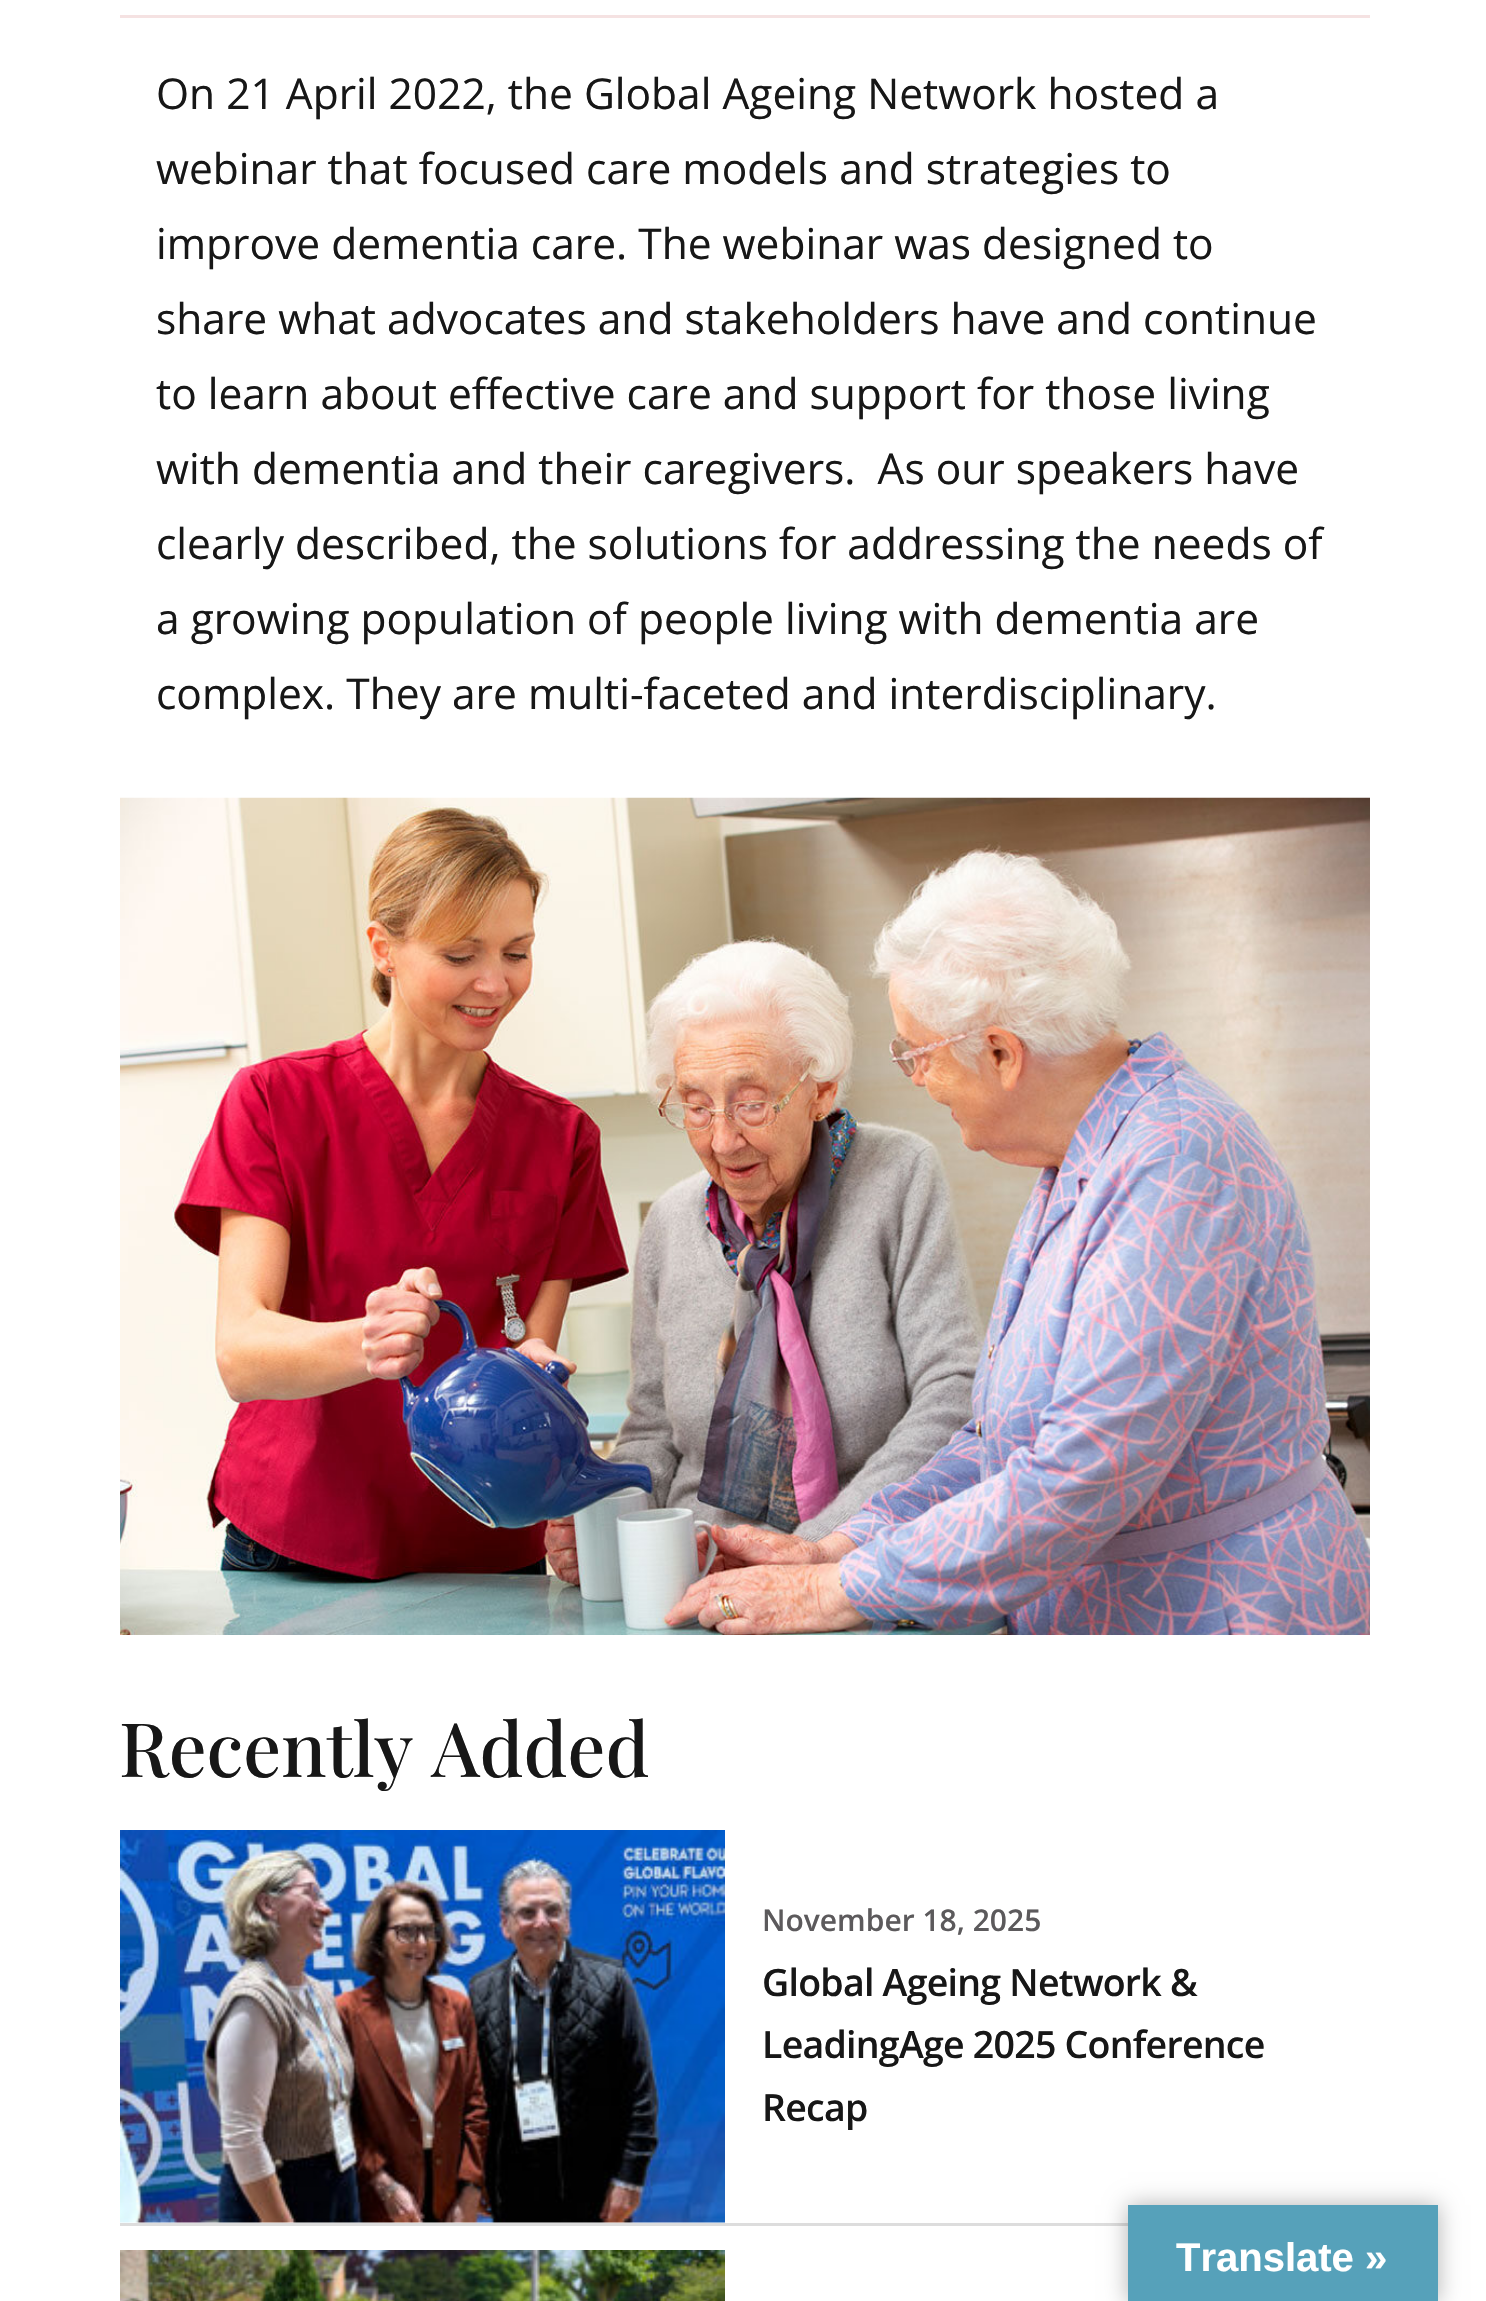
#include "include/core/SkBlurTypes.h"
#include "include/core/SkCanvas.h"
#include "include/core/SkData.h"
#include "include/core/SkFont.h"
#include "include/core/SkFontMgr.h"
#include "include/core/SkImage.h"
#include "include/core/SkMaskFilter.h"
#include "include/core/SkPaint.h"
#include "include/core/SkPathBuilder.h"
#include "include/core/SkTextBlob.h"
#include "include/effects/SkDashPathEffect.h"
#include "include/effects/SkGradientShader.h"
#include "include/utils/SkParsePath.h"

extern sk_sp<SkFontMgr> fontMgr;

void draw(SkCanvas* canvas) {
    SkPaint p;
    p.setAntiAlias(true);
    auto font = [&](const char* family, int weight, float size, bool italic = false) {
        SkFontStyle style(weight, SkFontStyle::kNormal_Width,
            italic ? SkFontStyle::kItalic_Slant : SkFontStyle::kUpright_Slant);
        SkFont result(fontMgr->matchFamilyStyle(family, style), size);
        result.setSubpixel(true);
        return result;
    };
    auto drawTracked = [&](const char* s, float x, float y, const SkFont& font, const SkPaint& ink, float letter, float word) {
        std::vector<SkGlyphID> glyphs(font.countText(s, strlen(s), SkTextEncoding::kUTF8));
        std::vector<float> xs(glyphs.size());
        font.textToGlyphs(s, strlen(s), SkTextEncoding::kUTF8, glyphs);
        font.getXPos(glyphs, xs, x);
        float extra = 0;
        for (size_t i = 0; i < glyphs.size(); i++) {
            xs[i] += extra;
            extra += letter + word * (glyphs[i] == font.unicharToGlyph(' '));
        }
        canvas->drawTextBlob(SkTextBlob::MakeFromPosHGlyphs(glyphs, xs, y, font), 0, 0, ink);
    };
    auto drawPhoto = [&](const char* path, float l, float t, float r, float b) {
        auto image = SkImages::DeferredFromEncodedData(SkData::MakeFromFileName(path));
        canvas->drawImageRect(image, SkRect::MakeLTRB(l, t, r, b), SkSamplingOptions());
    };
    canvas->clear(0xFFFFFFFF);
    p.setColor(0xFFF5E2E2);
    canvas->drawRect(SkRect::MakeLTRB(120, 15, 1370, 18), p);
    auto font1 = font("Open Sans", 400, 42.5f);
    p.setColor(0xFF171717);
    {
        const struct { const char* s; float x, y; } items[] = {
            {"On 21 April 2022, the Global Ageing Network hosted a", 156, 109},
            {"webinar that focused care models and strategies to", 156, 184},
            {"improve dementia care. The webinar was designed to", 156, 259},
            {"share what advocates and stakeholders have and continue", 156, 334},
            {"to learn about effective care and support for those living", 156, 409},
            {"with dementia and their caregivers.  As our speakers have", 156, 484},
            {"clearly described, the solutions for addressing the needs of", 156, 559},
            {"a growing population of people living with dementia are", 156, 634},
            {"complex. They are multi-faceted and interdisciplinary.", 156, 709},
        };
        for (auto [s, x, y] : items) {
            canvas->drawString(s, x, y, font1, p);
        }
    }
    drawPhoto("media/1.png", 120, 797, 1370, 1635);
    auto font2 = font("Playfair Display", 500, 75);
    canvas->drawString("Recently Added", 119, 1777, font2, p);
    p.setColor(0xFFDDDDDD);
    canvas->drawRect(SkRect::MakeLTRB(120, 2223, 1128, 2226), p);
    drawPhoto("media/2.png", 120, 1830, 725, 2223);
    auto font3 = font("Open Sans", 600, 30);
    p.setColor(0xFF5C5A5C);
    canvas->drawString("November 18, 2025", 762, 1931, font3, p);
    auto font4 = font("Open Sans", 600, 37.5f);
    p.setColor(0xFF171717);
    {
        const struct { const char* s; float x, y; } items[] = {
            {"Global Ageing Network &", 762, 1996},
            {"LeadingAge 2025 Conference", 762, 2058},
            {"Recap", 762, 2121},
        };
        for (auto [s, x, y] : items) {
            drawTracked(s, x, y, font4, p, -0.75f, 0);
        }
    }
    drawPhoto("media/3.png", 120, 2250, 725, 2301);
    p.setColor(0x4D000000);
    p.setMaskFilter(SkMaskFilter::MakeBlur(kNormal_SkBlurStyle, 11));
    canvas->drawRect(SkRect::MakeLTRB(1128, 2205, 1438, 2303), p);
    p.setMaskFilter(nullptr);
    p.setColor(0xFF56A1BA);
    canvas->drawRect(SkRect::MakeLTRB(1128, 2205, 1438, 2301), p);
    auto font5 = font("Liberation Sans", 700, 40);
    p.setColor(0xFFFFFFFF);
    canvas->drawString("Translate »", 1176, 2271, font5, p);
}
